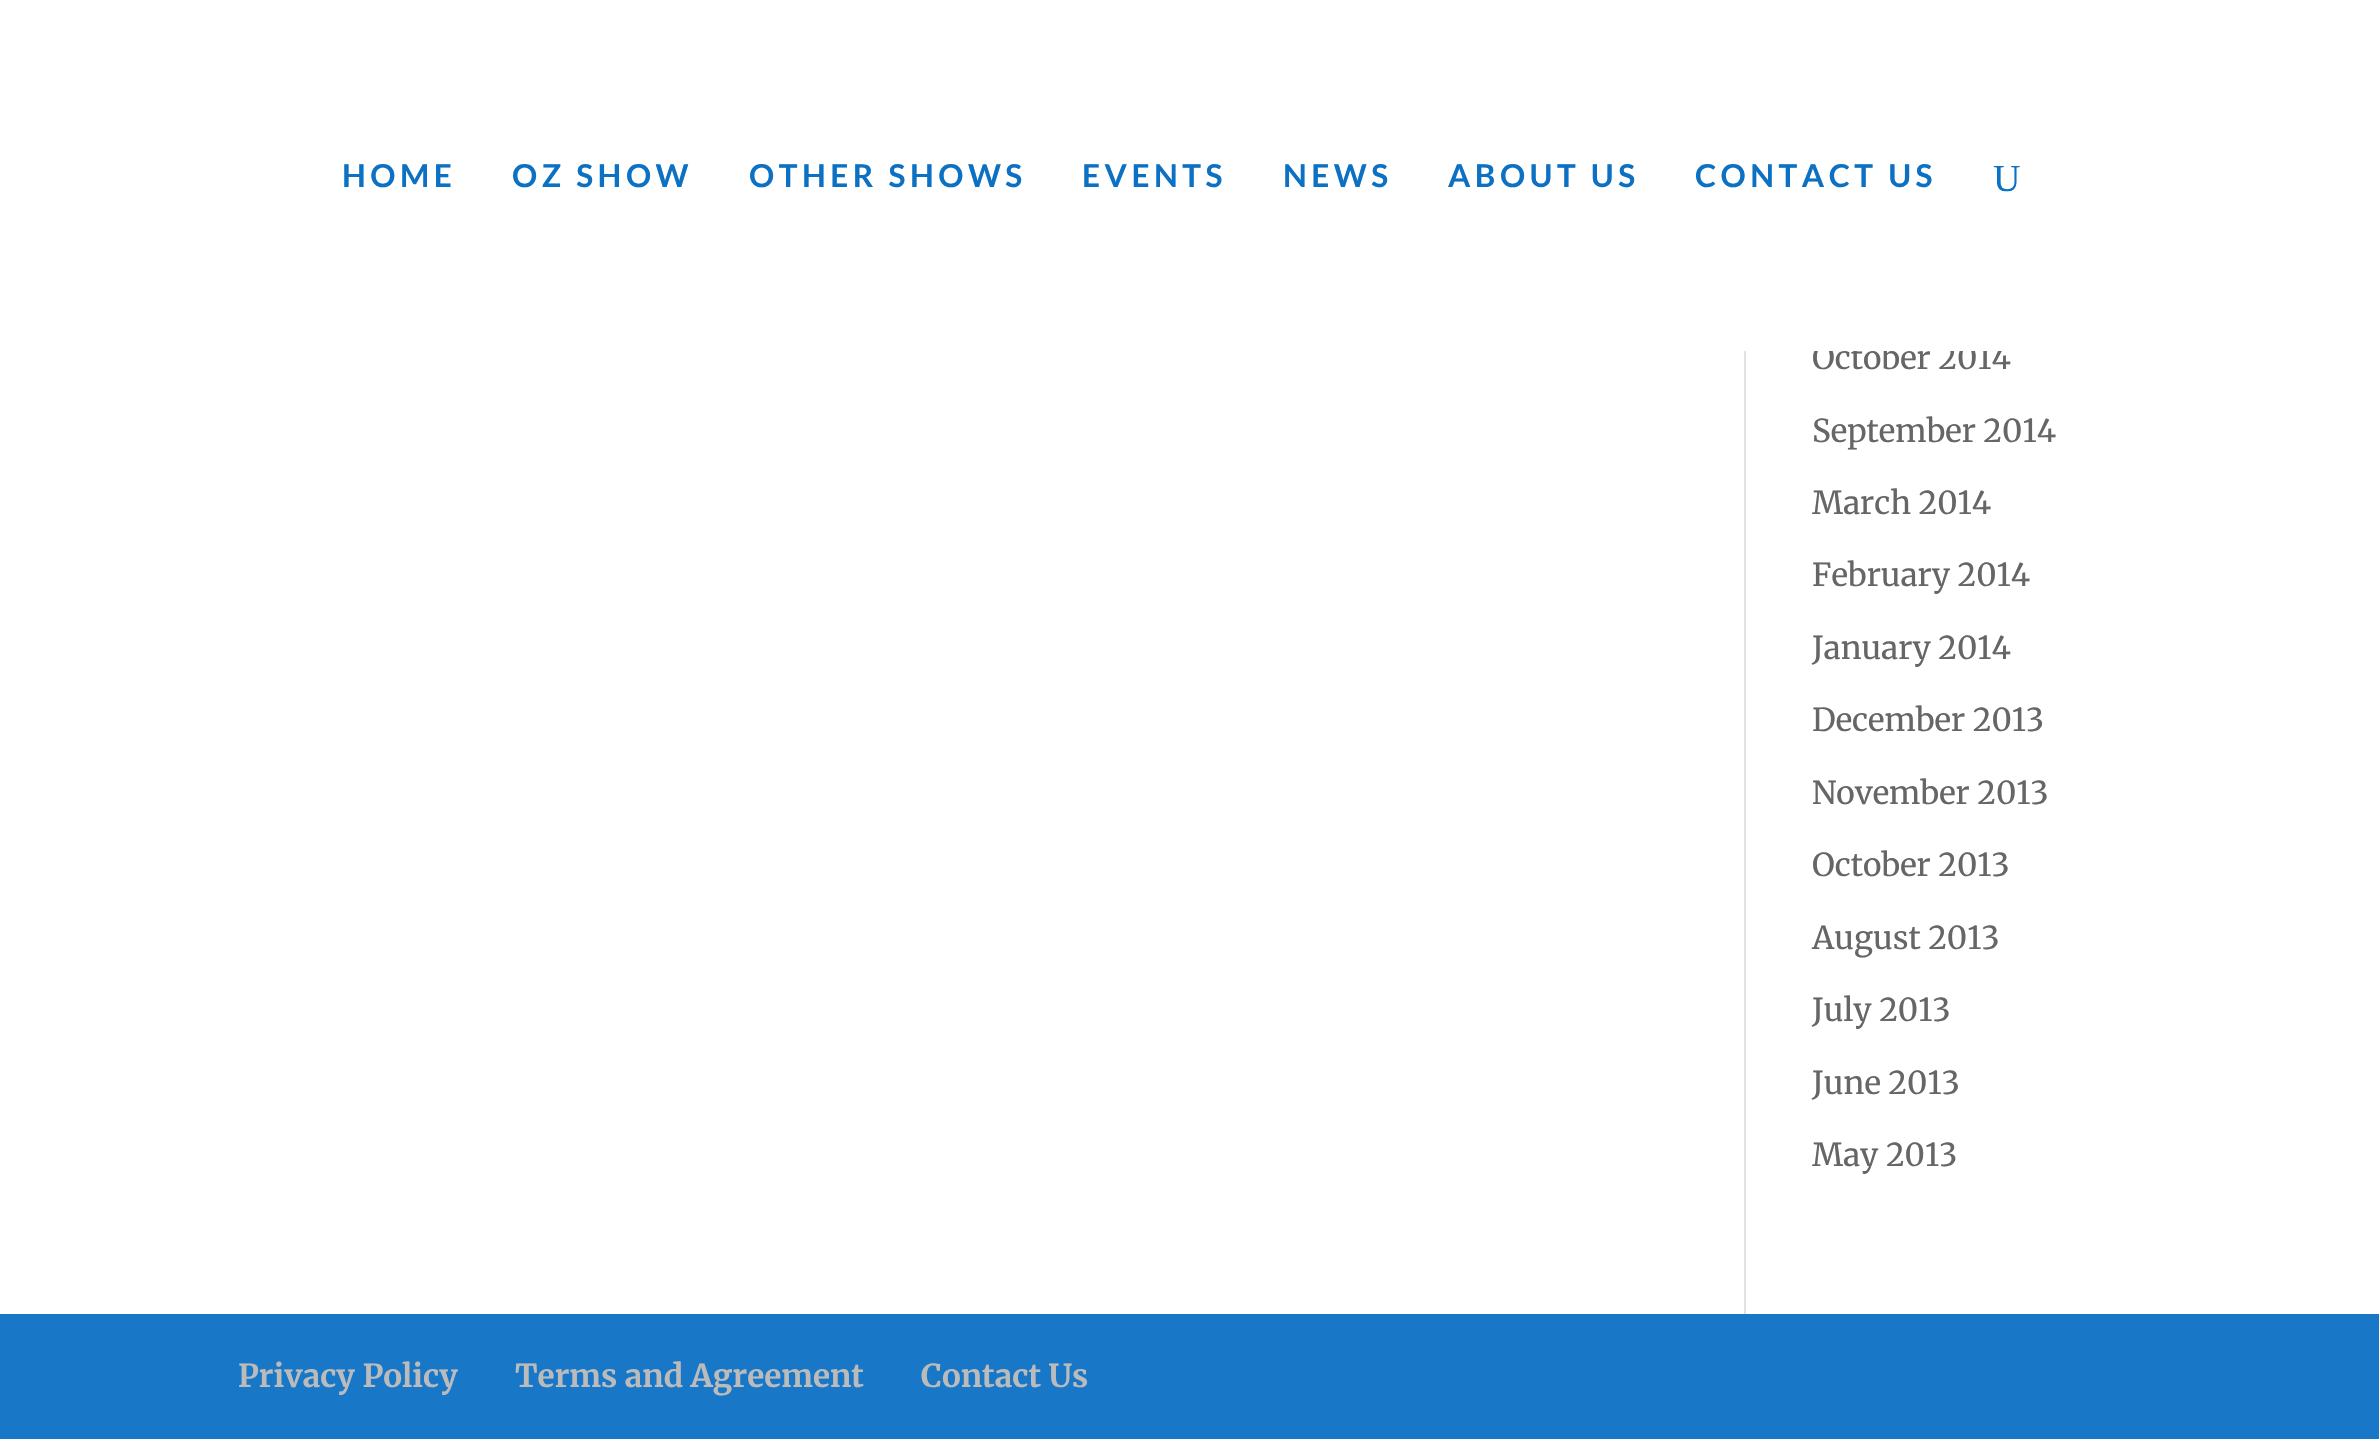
#include "include/core/SkBlurTypes.h"
#include "include/core/SkCanvas.h"
#include "include/core/SkData.h"
#include "include/core/SkFont.h"
#include "include/core/SkFontMgr.h"
#include "include/core/SkImage.h"
#include "include/core/SkMaskFilter.h"
#include "include/core/SkPaint.h"
#include "include/core/SkPathBuilder.h"
#include "include/core/SkTextBlob.h"
#include "include/effects/SkDashPathEffect.h"
#include "include/effects/SkGradientShader.h"
#include "include/utils/SkParsePath.h"

extern sk_sp<SkFontMgr> fontMgr;

void draw(SkCanvas* canvas) {
    SkPaint p;
    p.setAntiAlias(true);
    auto font = [&](const char* family, int weight, float size, bool italic = false) {
        SkFontStyle style(weight, SkFontStyle::kNormal_Width,
            italic ? SkFontStyle::kItalic_Slant : SkFontStyle::kUpright_Slant);
        SkFont result(fontMgr->matchFamilyStyle(family, style), size);
        result.setSubpixel(true);
        return result;
    };
    auto drawTracked = [&](const char* s, float x, float y, const SkFont& font, const SkPaint& ink, float letter, float word) {
        std::vector<SkGlyphID> glyphs(font.countText(s, strlen(s), SkTextEncoding::kUTF8));
        std::vector<float> xs(glyphs.size());
        font.textToGlyphs(s, strlen(s), SkTextEncoding::kUTF8, glyphs);
        font.getXPos(glyphs, xs, x);
        float extra = 0;
        for (size_t i = 0; i < glyphs.size(); i++) {
            xs[i] += extra;
            extra += letter + word * (glyphs[i] == font.unicharToGlyph(' '));
        }
        canvas->drawTextBlob(SkTextBlob::MakeFromPosHGlyphs(glyphs, xs, y, font), 0, 0, ink);
    };
    canvas->clear(0xFFFFFFFF);
    auto font1 = font("Merriweather", 300, 31.5f);
    p.setColor(0xFF666666);
    canvas->drawString("October 2014", 1812, 369, font1, p);
    p.setColor(0xFFFFFFFF);
    canvas->drawRect(SkRect::MakeLTRB(1814, 343, 2005, 351), p);
    auto font2 = font("Lato", 700, 31.5f);
    p.setColor(0xFF0C71C3);
    {
        const struct { const char* s; float x, y; } items[] = {
            {"HOME", 342, 187},
            {"OZ SHOW", 512, 187},
            {"OTHER SHOWS", 749, 187},
            {"EVENTS", 1082, 187},
            {"NEWS", 1283, 187},
            {"ABOUT US", 1448, 187},
            {"CONTACT US", 1695, 187},
        };
        for (auto [s, x, y] : items) {
            drawTracked(s, x, y, font2, p, 4.5f, 0);
        }
    }
    auto font3 = font("Liberation Serif", 400, 38);
    canvas->drawString("U", 1993, 191, font3, p);
    p.setColor(0xFFE2E2E2);
    canvas->drawRect(SkRect::MakeLTRB(1744, 351, 1746, 1314), p);
    p.setColor(0xFF666666);
    {
        const struct { const char* s; float x, y; } items[] = {
            {"September 2014", 1812, 442},
            {"March 2014", 1812, 514},
            {"February 2014", 1812, 586},
            {"January 2014", 1812, 659},
            {"December 2013", 1812, 731},
            {"November 2013", 1812, 804},
            {"October 2013", 1812, 876},
            {"August 2013", 1812, 949},
            {"July 2013", 1812, 1021},
            {"June 2013", 1812, 1094},
            {"May 2013", 1812, 1166},
        };
        for (auto [s, x, y] : items) {
            canvas->drawString(s, x, y, font1, p);
        }
    }
    p.setColor(0xFF1878C7);
    canvas->drawRect(SkRect::MakeLTRB(0, 1314, 2379, 1439), p);
    auto font4 = font("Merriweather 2", 300, 31.5f);
    p.setColor(0xFFBBBBBB);
    {
        const struct { const char* s; float x, y; } items[] = {
            {"Privacy Policy", 238, 1387},
            {"Terms and Agreement", 515, 1387},
            {"Contact Us", 921, 1387},
        };
        for (auto [s, x, y] : items) {
            canvas->drawString(s, x, y, font4, p);
        }
    }
}
